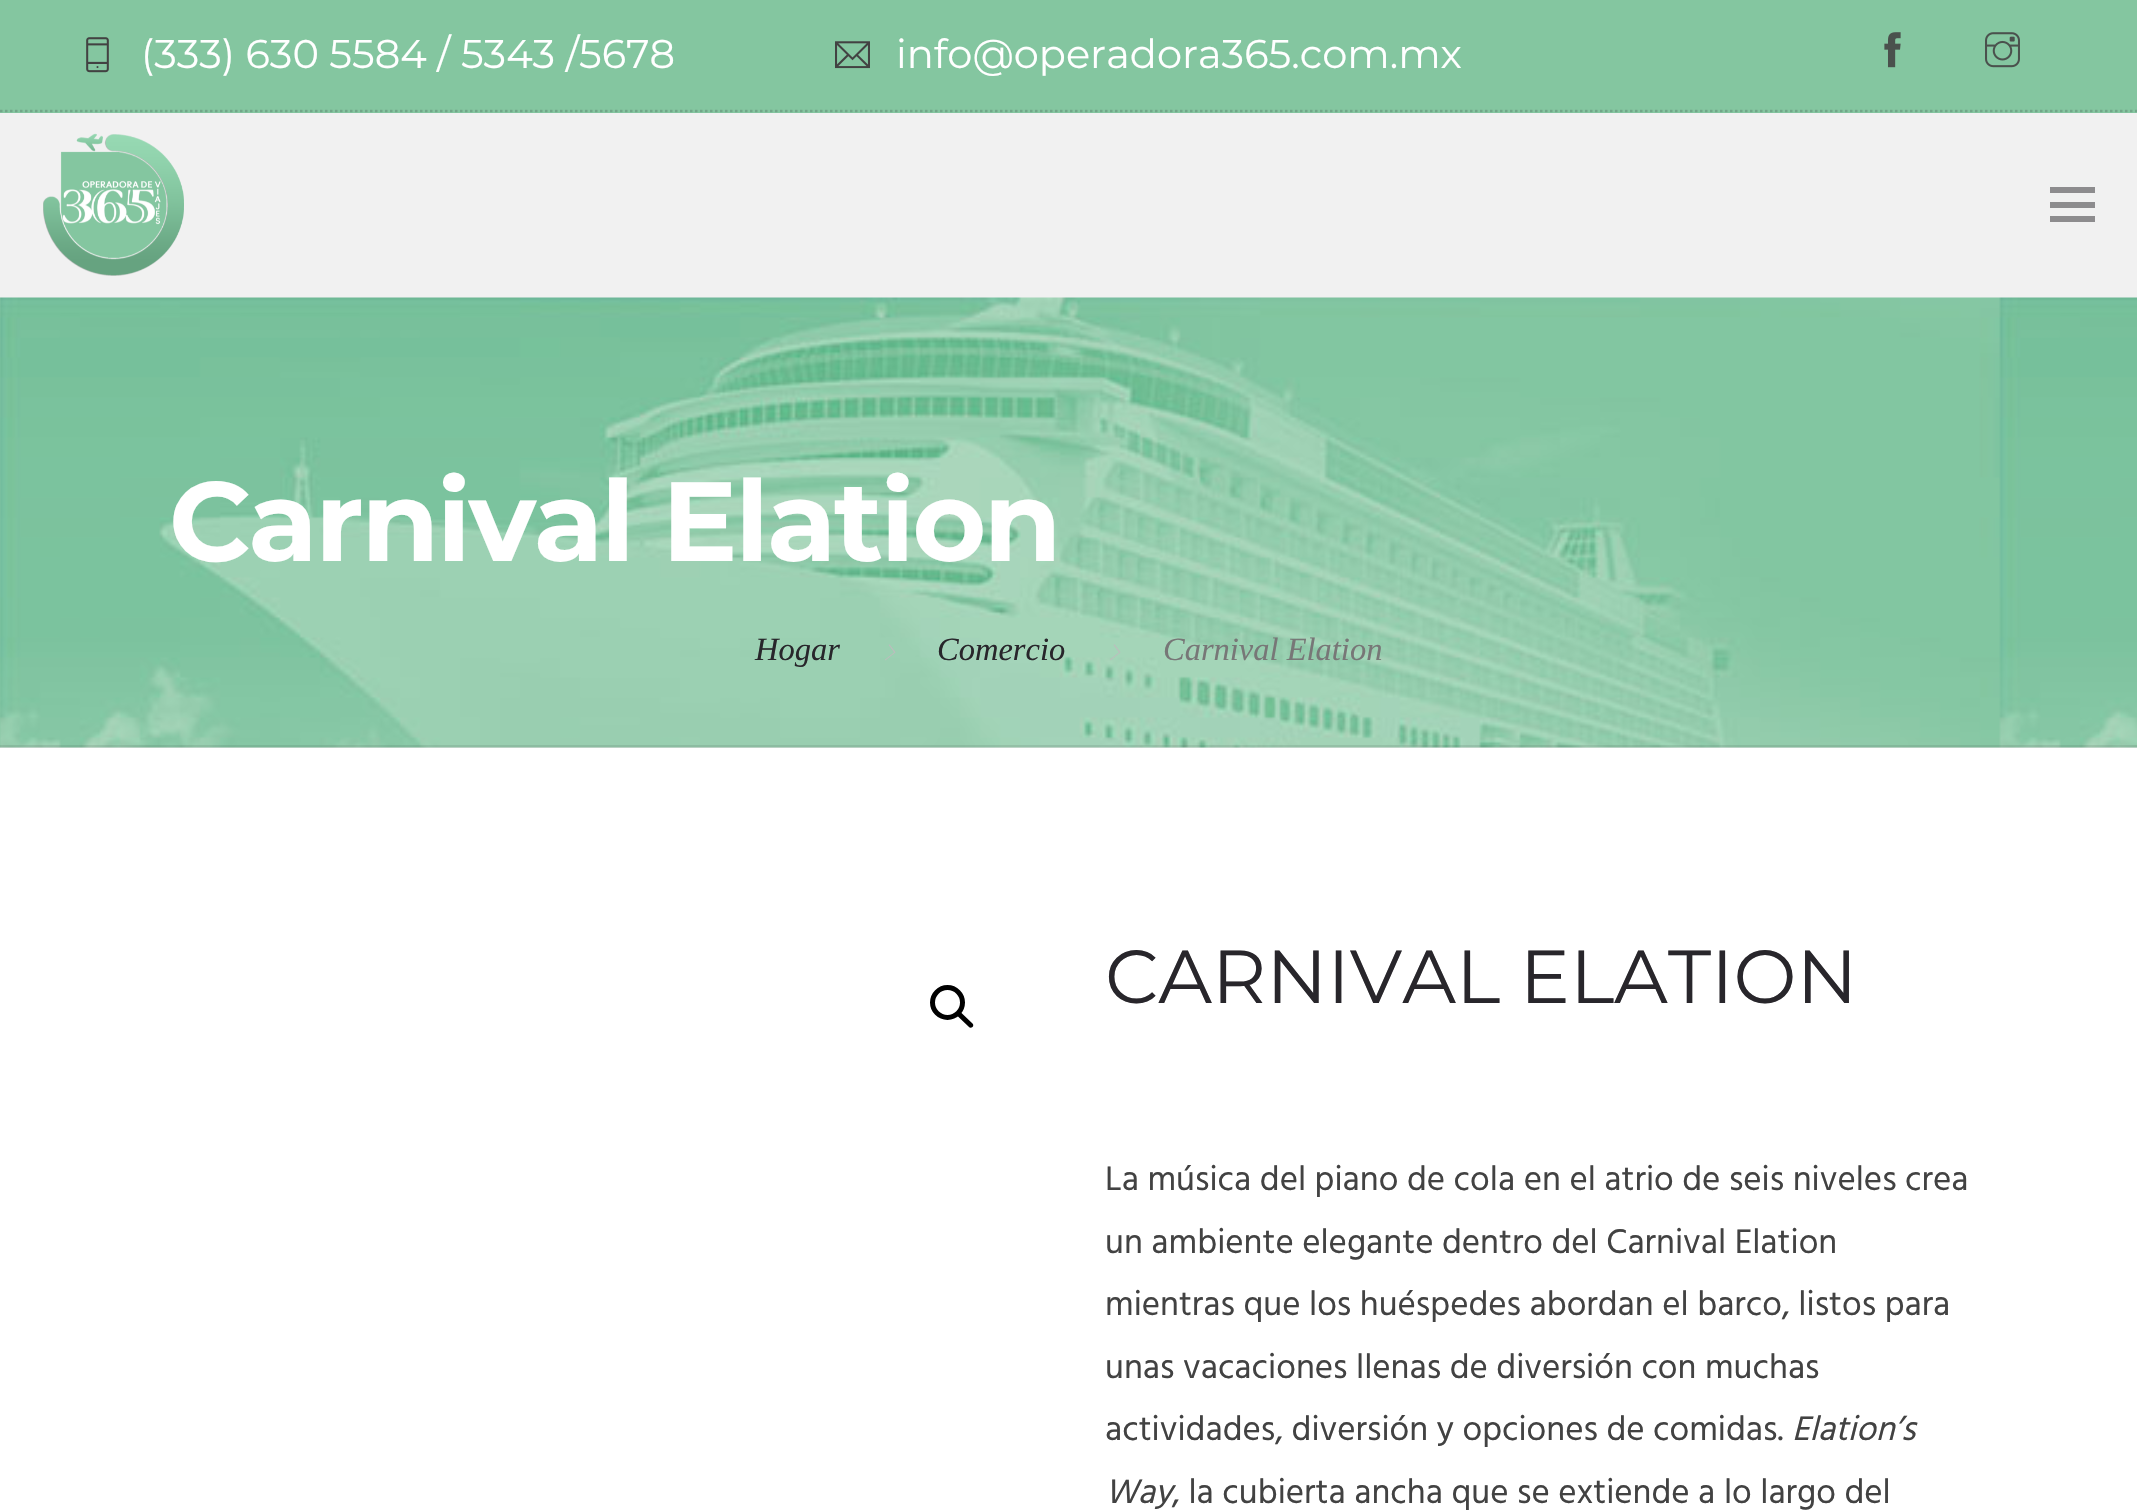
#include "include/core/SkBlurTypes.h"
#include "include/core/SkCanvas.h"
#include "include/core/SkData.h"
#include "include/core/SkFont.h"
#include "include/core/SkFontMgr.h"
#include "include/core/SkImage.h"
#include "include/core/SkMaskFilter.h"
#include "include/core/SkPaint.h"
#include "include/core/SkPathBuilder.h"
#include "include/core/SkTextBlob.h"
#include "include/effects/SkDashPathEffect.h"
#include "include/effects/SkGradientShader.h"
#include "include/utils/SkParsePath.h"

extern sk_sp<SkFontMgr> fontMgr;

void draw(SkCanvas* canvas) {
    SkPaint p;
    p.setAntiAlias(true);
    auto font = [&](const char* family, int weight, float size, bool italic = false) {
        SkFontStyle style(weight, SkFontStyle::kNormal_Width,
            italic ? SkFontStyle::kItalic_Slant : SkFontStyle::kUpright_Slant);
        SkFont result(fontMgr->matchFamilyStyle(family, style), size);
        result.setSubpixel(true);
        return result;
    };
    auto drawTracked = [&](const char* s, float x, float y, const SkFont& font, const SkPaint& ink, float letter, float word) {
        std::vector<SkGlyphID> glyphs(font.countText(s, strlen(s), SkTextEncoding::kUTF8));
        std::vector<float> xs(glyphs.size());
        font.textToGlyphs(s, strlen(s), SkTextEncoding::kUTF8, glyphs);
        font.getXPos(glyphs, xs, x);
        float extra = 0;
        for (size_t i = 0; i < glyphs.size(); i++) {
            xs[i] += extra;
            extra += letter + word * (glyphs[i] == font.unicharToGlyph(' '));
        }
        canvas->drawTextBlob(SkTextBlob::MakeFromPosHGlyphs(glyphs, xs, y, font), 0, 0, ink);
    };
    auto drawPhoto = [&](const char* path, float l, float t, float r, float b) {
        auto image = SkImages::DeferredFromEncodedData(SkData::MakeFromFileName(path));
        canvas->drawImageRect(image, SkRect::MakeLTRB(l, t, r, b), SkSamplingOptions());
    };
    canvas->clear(0xFFFFFFFF);
    p.setColor(0xFF84C6A0);
    canvas->drawRect(SkRect::MakeLTRB(0, 0, 2137, 113), p);
    p.setStyle(SkPaint::kStroke_Style);
    p.setStrokeWidth(2.5f);
    p.setColor(0xFF72A689);
    p.setPathEffect(SkDashPathEffect::Make({{2.5f, 2.5f}}, 0));
    canvas->drawPath(SkPathBuilder().moveTo(0, 111).lineTo(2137.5f, 111).detach(), p);
    p.setPathEffect(nullptr);
    drawPhoto("media/1.png", 86, 37, 109, 73);
    auto font1 = font("Montserrat", 400, 40);
    p.setStyle(SkPaint::kFill_Style);
    p.setColor(0xFFFFFFFF);
    canvas->drawString("(333) 630 5584 / 5343 /5678", 141, 68, font1, p);
    drawPhoto("media/2.png", 835, 41, 870, 69);
    canvas->drawString("info@operadora365.com.mx", 896, 68, font1, p);
    drawPhoto("media/3.png", 1884, 32, 1901, 68);
    drawPhoto("media/4.png", 1985, 32, 2020, 68);
    p.setColor(0xFFF1F1F1);
    canvas->drawRect(SkRect::MakeLTRB(0, 113, 2137, 298), p);
    drawPhoto("media/5.png", 43, 133, 184, 276);
    p.setColor(0xFF8D8C8E);
    canvas->drawPath(SkPathBuilder().moveTo(2095, 187).lineTo(2095, 193).lineTo(2050, 193).lineTo(2050, 187).close().moveTo(2050, 208).lineTo(2095, 208).lineTo(2095, 202).lineTo(2050, 202).close().moveTo(2050, 222).lineTo(2095, 222).lineTo(2095, 216).lineTo(2050, 216).close().detach(), p);
    drawPhoto("media/6.png", 0, 297, 2137, 748);
    p.setColor(0x1A1B1B1B);
    canvas->drawRect(SkRect::MakeLTRB(0, 745, 2137, 748), p);
    auto font2 = font("Montserrat", 700, 112.5f);
    p.setColor(0xFFFFFFFF);
    drawTracked("Carnival Elation", 169, 561, font2, p, -2.25f, 0);
    auto font3 = font("Liberation Serif", 400, 32.5f, true);
    p.setColor(0xFF28262B);
    canvas->drawString("Hogar", 755, 660, font3, p);
    drawPhoto("media/7.png", 885, 644, 896, 661);
    canvas->drawString("Comercio", 937, 660, font3, p);
    drawPhoto("media/8.png", 1110, 644, 1121, 661);
    p.setColor(0xFF777777);
    canvas->drawString("Carnival Elation", 1163, 660, font3, p);
    p.setStyle(SkPaint::kStroke_Style);
    p.setStrokeWidth(5);
    p.setColor(0xFF000000);
    canvas->drawCircle(947.5f, 1002.5f, 15, p);
    p.setStyle(SkPaint::kFill_Style);
    canvas->drawPath(SkPathBuilder().moveTo(958, 1013).cubicTo(959, 1012, 960.5f, 1012, 961.5f, 1013).lineTo(972.5f, 1023.5f).cubicTo(973.5f, 1024.5f, 973.5f, 1026, 972.5f, 1027).cubicTo(971.5f, 1028, 969.5f, 1028, 969, 1027).lineTo(958, 1016.5f).cubicTo(957, 1015.5f, 957, 1014, 958, 1013).close().detach(), p);
    auto font4 = font("Montserrat", 400, 75);
    p.setColor(0xFF28262B);
    canvas->drawString("CARNIVAL ELATION", 1105, 1003, font4, p);
    auto font5 = font("Hind", 400, 35);
    p.setColor(0xFF424242);
    {
        const struct { const char* s; float x, y; } items[] = {
            {"La música del piano de cola en el atrio de seis niveles crea", 1105, 1190},
            {"un ambiente elegante dentro del Carnival Elation", 1105, 1253},
            {"mientras que los huéspedes abordan el barco, listos para", 1105, 1315},
            {"unas vacaciones llenas de diversión con muchas", 1105, 1378},
            {"actividades, diversión y opciones de comidas.", 1105, 1440},
        };
        for (auto [s, x, y] : items) {
            canvas->drawString(s, x, y, font5, p);
        }
    }
    auto font6 = font("Hind", 400, 35, true);
    canvas->drawString("Elation’s", 1792, 1440, font6, p);
    canvas->drawString("Way", 1105, 1503, font6, p);
    canvas->drawString(", la cubierta ancha que se extiende a lo largo del", 1172, 1503, font5, p);
}
